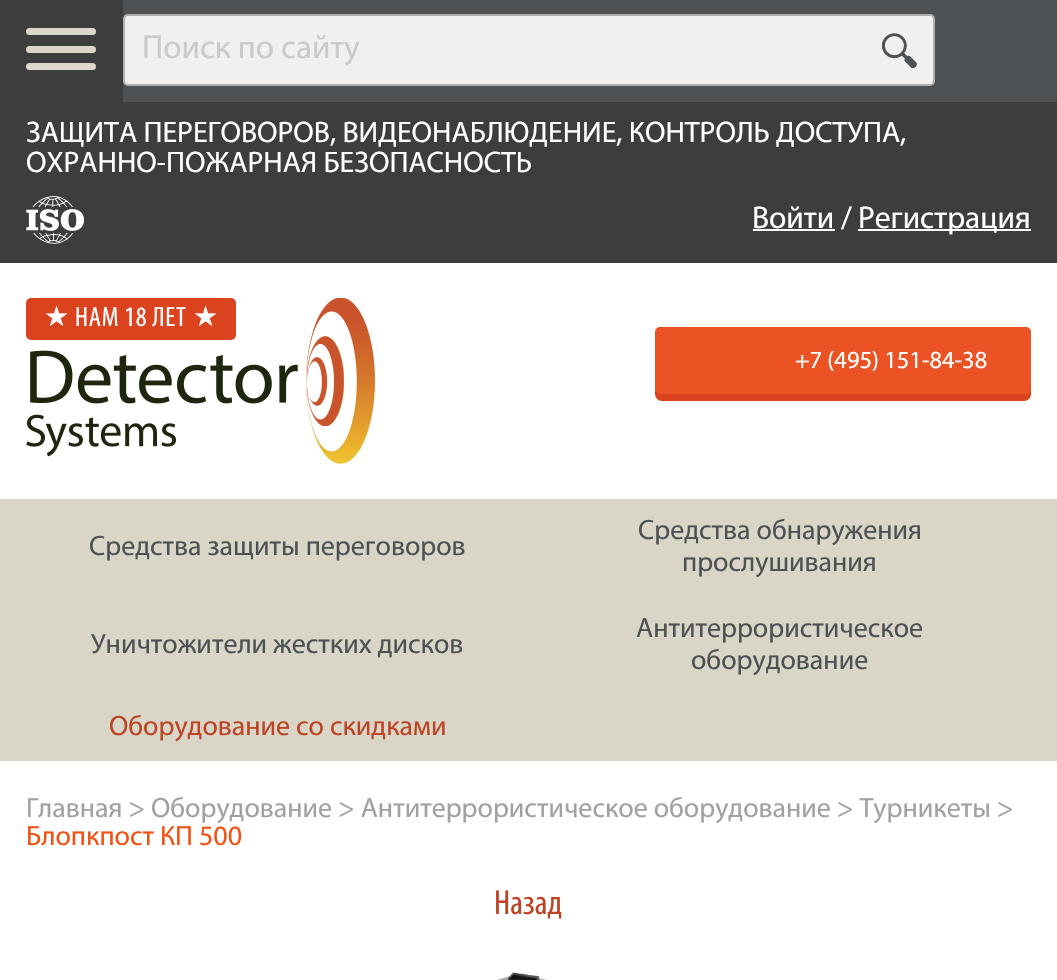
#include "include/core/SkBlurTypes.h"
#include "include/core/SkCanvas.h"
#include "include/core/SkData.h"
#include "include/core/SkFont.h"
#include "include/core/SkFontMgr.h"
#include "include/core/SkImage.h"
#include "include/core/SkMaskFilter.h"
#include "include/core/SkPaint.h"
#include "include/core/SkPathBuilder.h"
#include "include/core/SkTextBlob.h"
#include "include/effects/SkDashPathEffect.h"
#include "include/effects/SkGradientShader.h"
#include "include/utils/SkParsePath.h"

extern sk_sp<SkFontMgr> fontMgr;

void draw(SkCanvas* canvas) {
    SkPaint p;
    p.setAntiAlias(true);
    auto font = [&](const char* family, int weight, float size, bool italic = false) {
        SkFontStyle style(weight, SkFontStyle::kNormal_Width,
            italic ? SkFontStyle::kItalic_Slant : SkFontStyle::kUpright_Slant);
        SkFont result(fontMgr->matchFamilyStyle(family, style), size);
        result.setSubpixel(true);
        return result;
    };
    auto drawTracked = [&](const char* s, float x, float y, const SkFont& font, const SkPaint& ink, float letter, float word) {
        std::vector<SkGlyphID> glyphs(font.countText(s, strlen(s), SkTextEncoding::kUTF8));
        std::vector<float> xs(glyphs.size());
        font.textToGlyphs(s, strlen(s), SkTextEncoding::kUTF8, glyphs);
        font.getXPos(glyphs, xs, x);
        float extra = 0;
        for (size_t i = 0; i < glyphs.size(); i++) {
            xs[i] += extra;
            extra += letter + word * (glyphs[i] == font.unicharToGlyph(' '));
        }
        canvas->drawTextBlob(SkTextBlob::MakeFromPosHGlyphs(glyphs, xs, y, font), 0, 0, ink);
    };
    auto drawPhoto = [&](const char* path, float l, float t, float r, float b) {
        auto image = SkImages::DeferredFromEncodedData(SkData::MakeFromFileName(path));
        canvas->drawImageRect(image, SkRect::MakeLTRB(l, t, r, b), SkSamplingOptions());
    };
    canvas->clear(0xFFFFFFFF);
    p.setColor(0xFF4D5153);
    canvas->drawRect(SkRect::MakeLTRB(123, 0, 1057, 102), p);
    p.setColor(0xFF3D3D3D);
    canvas->drawRect(SkRect::MakeLTRB(0, 0, 123, 102), p);
    p.setColor(0xFFDDD7C9);
    canvas->drawRoundRect(SkRect::MakeLTRB(26, 46, 96, 53), 3.5f, 3.5f, p);
    canvas->drawRoundRect(SkRect::MakeLTRB(26, 28, 96, 35), 3.5f, 3.5f, p);
    canvas->drawRoundRect(SkRect::MakeLTRB(26, 63, 96, 70), 3.5f, 3.5f, p);
    p.setColor(0xFFF0F0F0);
    canvas->drawRoundRect(SkRect::MakeLTRB(124, 15, 934, 85), 4, 4, p);
    p.setStyle(SkPaint::kStroke_Style);
    p.setStrokeWidth(2);
    p.setColor(0xFFB0B0B0);
    canvas->drawRoundRect(SkRect::MakeLTRB(124, 15, 934, 85), 4, 4, p);
    auto font1 = font("Myriad", 400, 33.25f);
    p.setStyle(SkPaint::kFill_Style);
    p.setColor(0xFFCACACA);
    canvas->drawString("Поиск по сайту", 142, 58, font1, p);
    drawPhoto("media/1.png", 882, 33, 917, 68);
    p.setColor(0xFF3D3D3D);
    canvas->drawRect(SkRect::MakeLTRB(0, 102, 1057, 263), p);
    auto font2 = font("Myriad", 400, 29.75f);
    p.setColor(0xFFFFFFFF);
    canvas->drawString("ЗАЩИТА ПЕРЕГОВОРОВ, ВИДЕОНАБЛЮДЕНИЕ, КОНТРОЛЬ ДОСТУПА,", 26, 142, font2, p);
    canvas->drawString("ОХРАННО-ПОЖАРНАЯ БЕЗОПАСНОСТЬ", 26, 172, font2, p);
    drawPhoto("media/2.png", 26, 196, 84, 244);
    canvas->drawRect(SkRect::MakeLTRB(753, 229, 835, 231), p);
    auto font3 = font("Myriad", 400, 31.5f);
    canvas->drawString("Войти /", 752, 228, font3, p);
    canvas->drawRect(SkRect::MakeLTRB(858, 229, 1031, 231), p);
    canvas->drawString("Регистрация", 858, 228, font3, p);
    drawPhoto("media/3.png", 26, 298, 375, 464);
    p.setColor(0xFFDB421E);
    canvas->drawRoundRect(SkRect::MakeLTRB(26, 298, 236, 340), 5, 5, p);
    auto font4 = font("DejaVu Sans", 400, 28);
    p.setColor(0xFFFFFFFF);
    drawTracked("★", 44, 326, font4, p, 0.75f, 0);
    auto font5 = font("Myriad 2", 400, 28);
    drawTracked("НАМ 18 ЛЕТ", 75, 326, font5, p, 0.75f, 0);
    drawTracked("★", 193, 326, font4, p, 0.75f, 0);
    p.setColor(0xFFDB421E);
    canvas->drawRoundRect(SkRect::MakeLTRB(655, 327, 1031, 401), 7, 7, p);
    p.setColor(0xFFEB5324);
    canvas->drawRoundRect(SkRect::MakeLTRB(655, 327, 1031, 394), 5, 5, p);
    auto font6 = font("Myriad", 400, 24.5f);
    p.setColor(0xFFFFFFFF);
    canvas->drawString("+7 (495) 151-84-38", 795, 368, font6, p);
    p.setColor(0xFFD9D5C7);
    canvas->drawRect(SkRect::MakeLTRB(0, 499, 1057, 761), p);
    auto font7 = font("Myriad", 400, 28);
    p.setColor(0xFF4D5153);
    {
        const struct { const char* s; float x, y; } items[] = {
            {"Средства защиты переговоров", 89, 555},
            {"Средства обнаружения", 638, 539},
            {"прослушивания", 682, 571},
            {"Уничтожители жестких дисков", 91, 653},
            {"Антитеррористическое", 636, 637},
            {"оборудование", 691, 669},
        };
        for (auto [s, x, y] : items) {
            canvas->drawString(s, x, y, font7, p);
        }
    }
    p.setColor(0xFFBC4425);
    canvas->drawString("Оборудование со скидками", 109, 735, font7, p);
    p.setColor(0xFF9FA1A3);
    canvas->drawString("Главная > Оборудование > Антитеррористическое оборудование > Турникеты >", 26, 817, font7, p);
    p.setColor(0xFFF05213);
    canvas->drawString("Блопкпост КП 500", 26, 845, font7, p);
    auto font8 = font("Myriad 2", 400, 35);
    p.setColor(0xFFBC4425);
    canvas->drawString("Назад", 494, 914, font8, p);
    drawPhoto("media/4.png", 496, 971, 549, 980);
}
